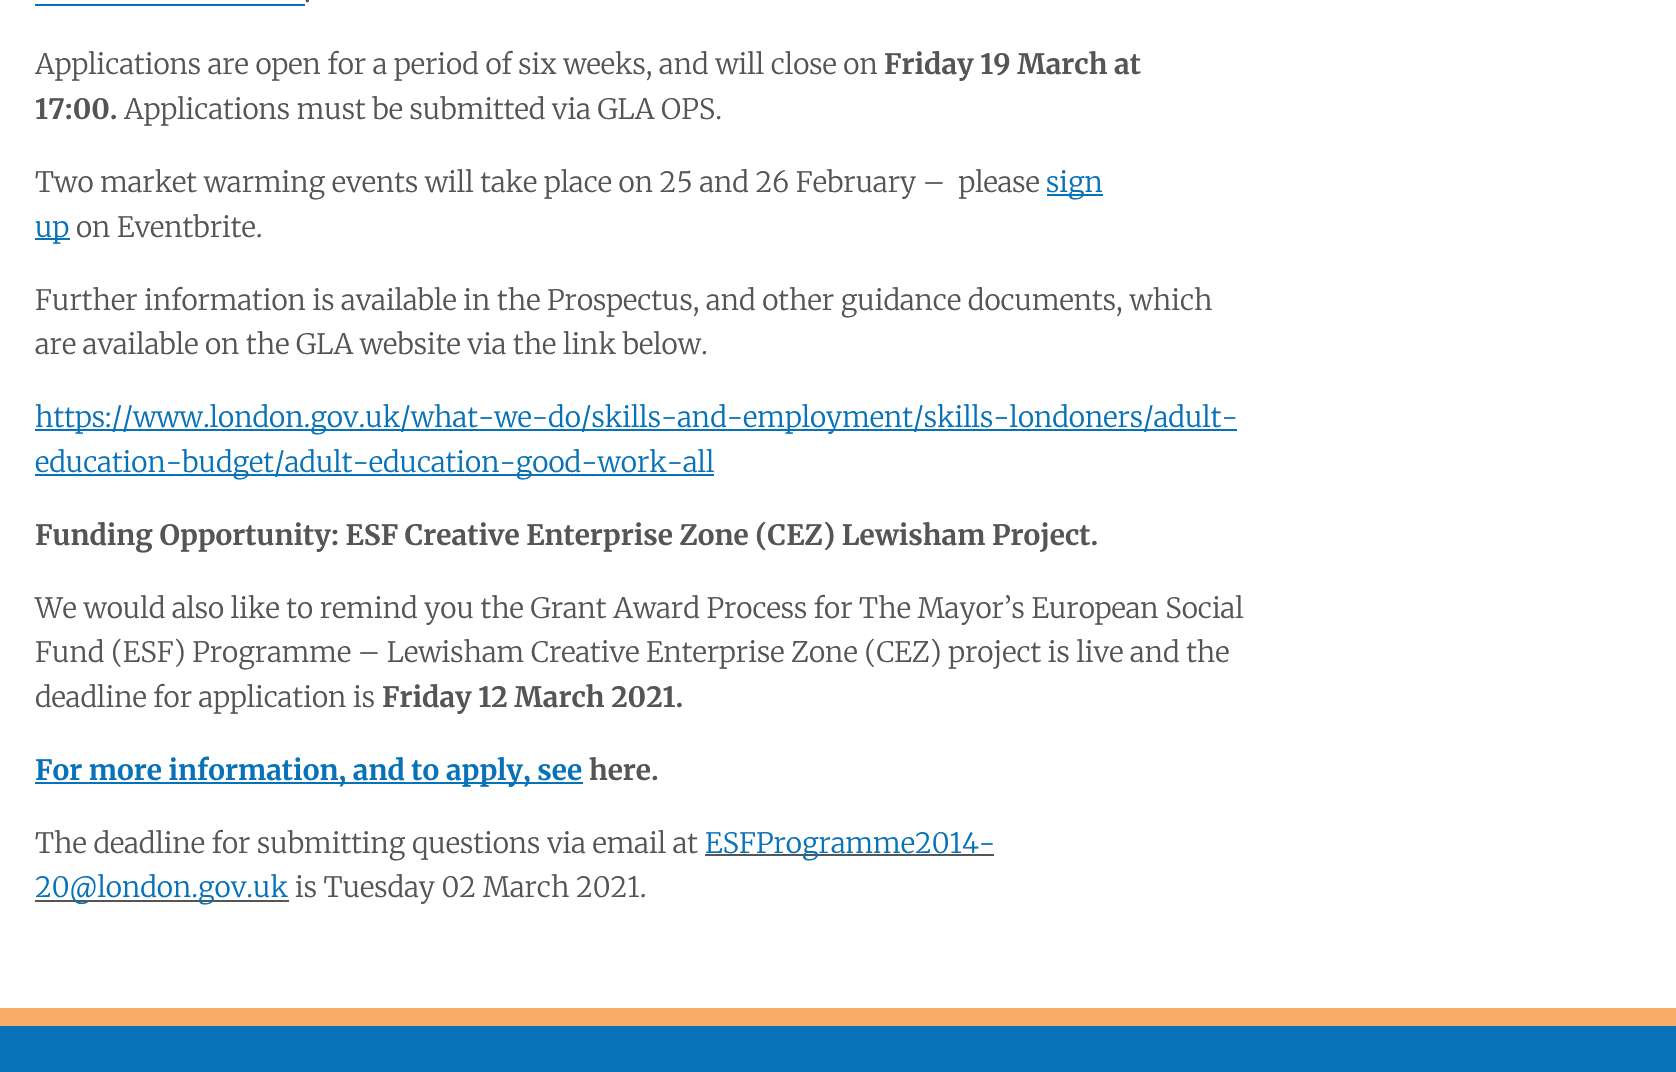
#include "include/core/SkBlurTypes.h"
#include "include/core/SkCanvas.h"
#include "include/core/SkData.h"
#include "include/core/SkFont.h"
#include "include/core/SkFontMgr.h"
#include "include/core/SkImage.h"
#include "include/core/SkMaskFilter.h"
#include "include/core/SkPaint.h"
#include "include/core/SkPathBuilder.h"
#include "include/core/SkTextBlob.h"
#include "include/effects/SkDashPathEffect.h"
#include "include/effects/SkGradientShader.h"
#include "include/utils/SkParsePath.h"

extern sk_sp<SkFontMgr> fontMgr;

void draw(SkCanvas* canvas) {
    SkPaint p;
    p.setAntiAlias(true);
    auto font = [&](const char* family, int weight, float size, bool italic = false) {
        SkFontStyle style(weight, SkFontStyle::kNormal_Width,
            italic ? SkFontStyle::kItalic_Slant : SkFontStyle::kUpright_Slant);
        SkFont result(fontMgr->matchFamilyStyle(family, style), size);
        result.setSubpixel(true);
        return result;
    };
    canvas->clear(0xFFFFFFFF);
    auto font1 = font("Merriweather", 300, 28);
    p.setColor(0xFF555555);
    canvas->drawString(".", 304, 2, font1, p);
    p.setColor(0xFF0872B9);
    canvas->drawRect(SkRect::MakeLTRB(35, 4, 305, 6), p);
    p.setColor(0xFF555555);
    canvas->drawString("Applications are open for a period of six weeks, and will close on", 35, 74, font1, p);
    auto font2 = font("Merriweather", 700, 28);
    canvas->drawString("Friday 19 March at", 884, 74, font2, p);
    canvas->drawString("17:00.", 35, 119, font2, p);
    canvas->drawString("Applications must be submitted via GLA OPS.", 124, 119, font1, p);
    canvas->drawString("Two market warming events will take place on 25 and 26 February –  please", 35, 192, font1, p);
    p.setColor(0xFF0872B9);
    canvas->drawRect(SkRect::MakeLTRB(1047, 194, 1103, 196), p);
    canvas->drawString("sign", 1046, 192, font1, p);
    canvas->drawRect(SkRect::MakeLTRB(35, 238, 70, 240), p);
    canvas->drawString("up", 35, 237, font1, p);
    p.setColor(0xFF555555);
    {
        const struct { const char* s; float x, y; } items[] = {
            {"on Eventbrite.", 76, 237},
            {"Further information is available in the Prospectus, and other guidance documents, which", 35, 310},
            {"are available on the GLA website via the link below.", 35, 354},
        };
        for (auto [s, x, y] : items) {
            canvas->drawString(s, x, y, font1, p);
        }
    }
    p.setColor(0xFF0872B9);
    canvas->drawRect(SkRect::MakeLTRB(35, 429, 1237, 431), p);
    canvas->drawString("https://www.london.gov.uk/what-we-do/skills-and-employment/skills-londoners/adult-", 35, 427, font1, p);
    canvas->drawRect(SkRect::MakeLTRB(35, 474, 714, 476), p);
    canvas->drawString("education-budget/adult-education-good-work-all", 35, 472, font1, p);
    p.setColor(0xFF555555);
    canvas->drawString("Funding Opportunity: ESF Creative Enterprise Zone (CEZ) Lewisham Project.", 35, 545, font2, p);
    {
        const struct { const char* s; float x, y; } items[] = {
            {"We would also like to remind you the Grant Award Process for The Mayor’s European Social", 35, 618},
            {"Fund (ESF) Programme – Lewisham Creative Enterprise Zone (CEZ) project is live and the", 35, 662},
            {"deadline for application is", 35, 707},
        };
        for (auto [s, x, y] : items) {
            canvas->drawString(s, x, y, font1, p);
        }
    }
    canvas->drawString("Friday 12 March 2021.", 382, 707, font2, p);
    p.setColor(0xFF0872B9);
    canvas->drawRect(SkRect::MakeLTRB(35, 782, 583, 784), p);
    canvas->drawString("For more information, and to apply, see", 35, 780, font2, p);
    p.setColor(0xFF555555);
    canvas->drawString("here.", 589, 780, font2, p);
    canvas->drawString("The deadline for submitting questions via email at", 35, 853, font1, p);
    canvas->drawRect(SkRect::MakeLTRB(705, 854, 994, 856), p);
    p.setColor(0xFF0872B9);
    canvas->drawString("ESFProgramme2014-", 705, 853, font1, p);
    p.setColor(0xFF555555);
    canvas->drawRect(SkRect::MakeLTRB(35, 900, 289, 902), p);
    p.setColor(0xFF0872B9);
    canvas->drawString("20@london.gov.uk", 35, 897, font1, p);
    p.setColor(0xFF555555);
    canvas->drawString("is Tuesday 02 March 2021.", 295, 897, font1, p);
    p.setColor(0xFF0872B9);
    canvas->drawRect(SkRect::MakeLTRB(0, 1026, 1676, 1072), p);
    p.setColor(0xFFF7AD68);
    canvas->drawRect(SkRect::MakeLTRB(0, 1008, 1676, 1026), p);
}
